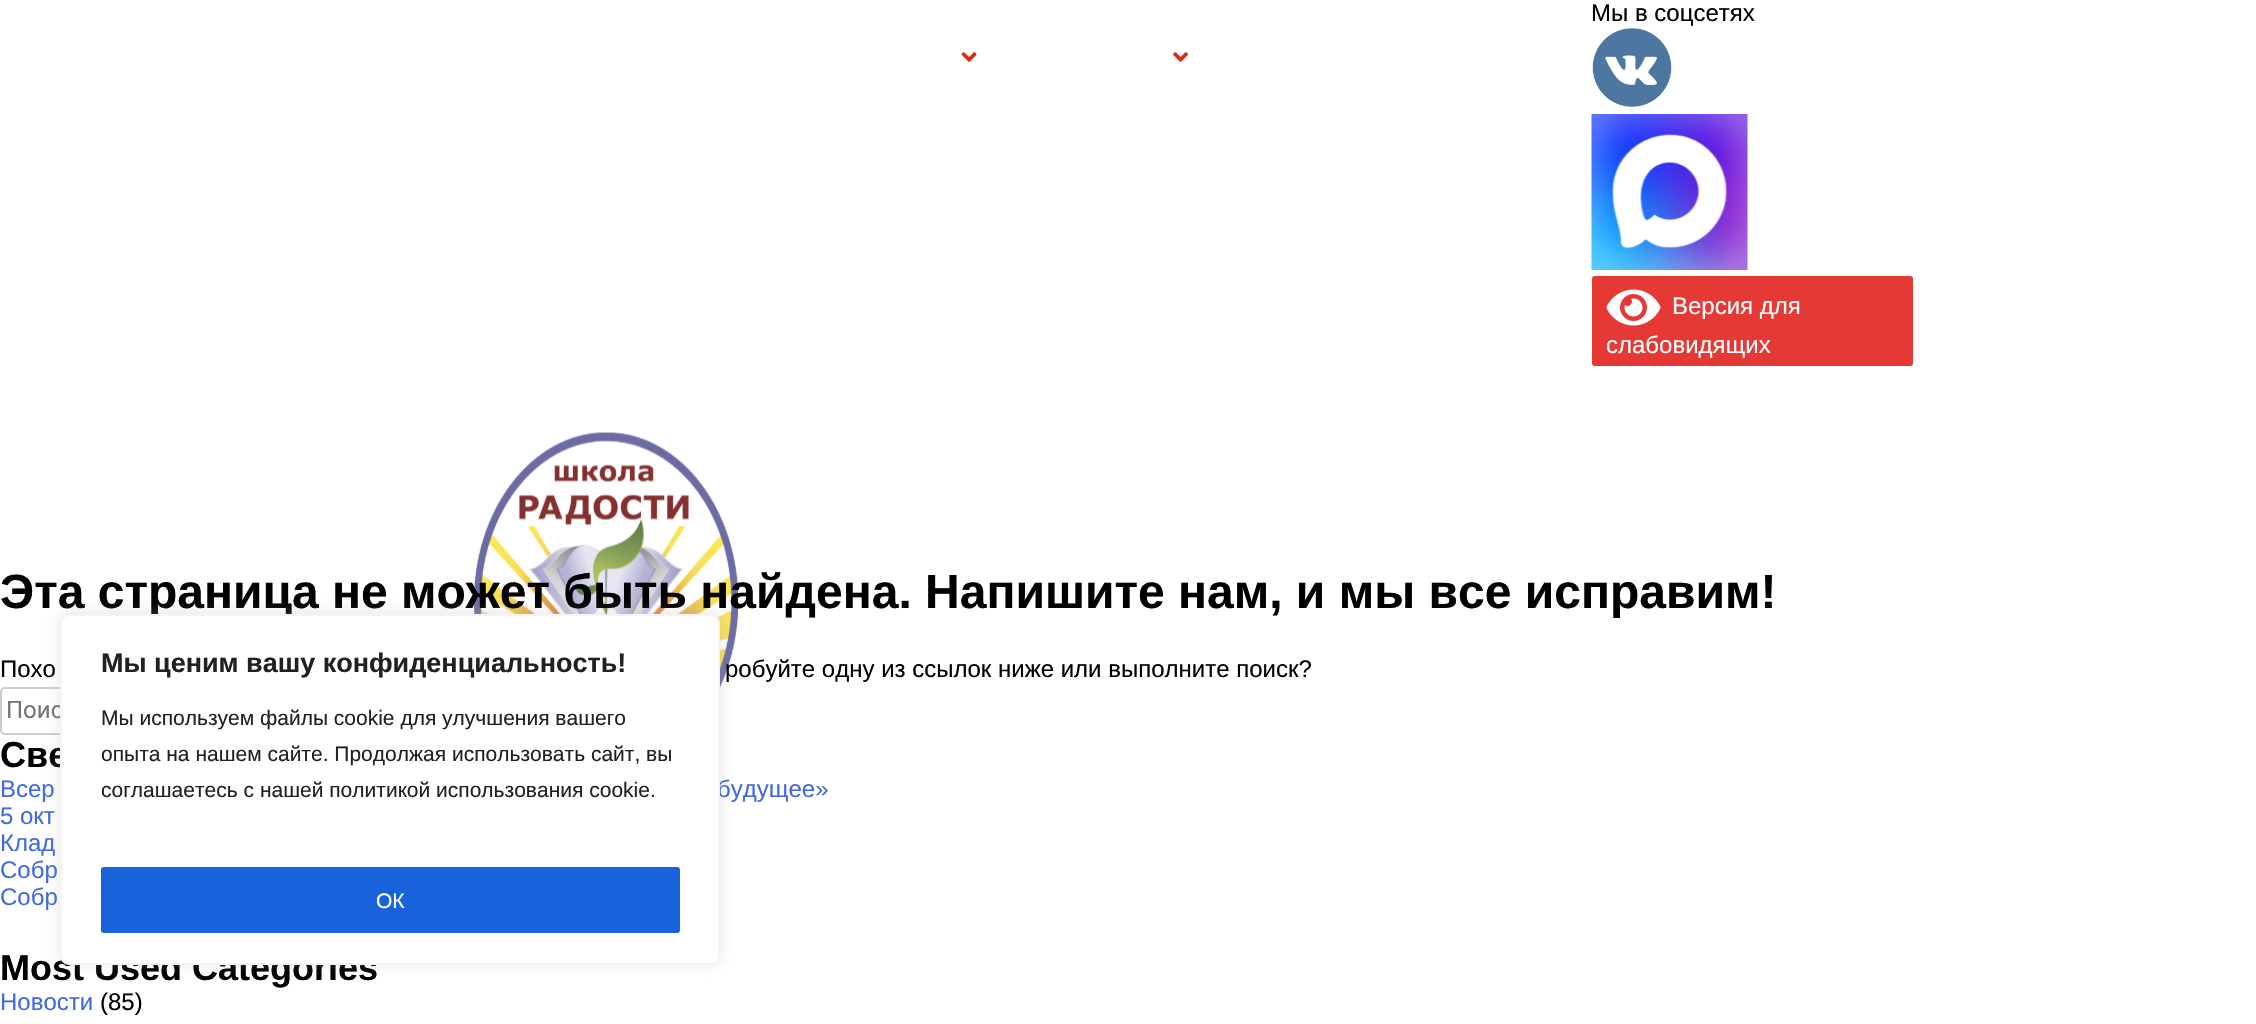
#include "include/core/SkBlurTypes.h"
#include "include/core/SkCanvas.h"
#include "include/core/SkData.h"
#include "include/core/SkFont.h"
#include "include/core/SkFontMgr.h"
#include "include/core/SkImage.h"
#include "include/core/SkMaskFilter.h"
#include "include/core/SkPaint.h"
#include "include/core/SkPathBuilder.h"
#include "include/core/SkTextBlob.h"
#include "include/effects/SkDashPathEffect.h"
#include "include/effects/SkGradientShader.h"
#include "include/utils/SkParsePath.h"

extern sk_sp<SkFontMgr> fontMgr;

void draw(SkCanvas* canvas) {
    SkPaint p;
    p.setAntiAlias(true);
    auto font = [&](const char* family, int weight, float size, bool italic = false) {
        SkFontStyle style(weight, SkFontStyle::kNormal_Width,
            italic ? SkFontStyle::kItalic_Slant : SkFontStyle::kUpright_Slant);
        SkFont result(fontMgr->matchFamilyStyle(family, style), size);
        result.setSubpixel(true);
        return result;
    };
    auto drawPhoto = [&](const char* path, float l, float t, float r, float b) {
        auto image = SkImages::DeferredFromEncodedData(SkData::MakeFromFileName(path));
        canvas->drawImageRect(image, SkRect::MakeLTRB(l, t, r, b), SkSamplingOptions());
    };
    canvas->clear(0xFFFFFFFF);
    drawPhoto("media/1.png", 961, 52, 977, 62);
    drawPhoto("media/2.png", 1173, 52, 1188, 62);
    auto font1 = font("Liberation Sans", 400, 24);
    p.setColor(0xFF000000);
    canvas->drawString("Мы в соцсетях", 1591, 21, font1, p);
    drawPhoto("media/3.png", 1592, 28, 1672, 107);
    drawPhoto("media/4.png", 1591, 114, 1748, 270);
    p.setColor(0xFFE53935);
    canvas->drawRoundRect(SkRect::MakeLTRB(1592, 276, 1913, 366), 3, 3, p);
    drawPhoto("media/5.png", 1606, 289, 1661, 326);
    p.setColor(0xFFFFFFFF);
    canvas->drawString("Версия для", 1672, 314, font1, p);
    canvas->drawString("слабовидящих", 1606, 353, font1, p);
    drawPhoto("media/6.png", 474, 432, 738, 688);
    auto font2 = font("Liberation Sans", 700, 48);
    p.setColor(0xFF000000);
    canvas->drawString("Эта страница не может быть найдена. Напишите нам, и мы все исправим!", 0, 608, font2, p);
    canvas->drawString("Похо", 0, 677, font1, p);
    canvas->drawString("робуйте одну из ссылок ниже или выполните поиск?", 725, 677, font1, p);
    p.setStyle(SkPaint::kStroke_Style);
    p.setStrokeWidth(2);
    p.setColor(0xFFCCCCCC);
    canvas->drawRoundRect(SkRect::MakeLTRB(1, 688, 316, 734), 4, 4, p);
    auto font3 = font("Roboto", 400, 24);
    p.setStyle(SkPaint::kFill_Style);
    p.setColor(0xFF757575);
    canvas->drawString("Поис", 6, 718, font3, p);
    auto font4 = font("Liberation Sans", 700, 36);
    p.setColor(0xFF000000);
    canvas->drawString("Све", 0, 767, font4, p);
    p.setColor(0xFF4169E1);
    {
        const struct { const char* s; float x, y; } items[] = {
            {"Всер", 0, 797},
            {"будущее»", 717, 797},
            {"5 окт", 0, 824},
            {"Клад", 0, 851},
            {"Собр", 0, 878},
            {"Собр", 0, 905},
        };
        for (auto [s, x, y] : items) {
            canvas->drawString(s, x, y, font1, p);
        }
    }
    p.setColor(0xFF000000);
    canvas->drawString("Most Used Categories", 0, 980, font4, p);
    p.setColor(0xFF4169E1);
    canvas->drawString("Новости", 0, 1010, font1, p);
    p.setColor(0xFF000000);
    canvas->drawString("(85)", 100, 1010, font1, p);
    p.setColor(0x4DACABAB);
    p.setMaskFilter(SkMaskFilter::MakeBlur(kNormal_SkBlurStyle, 7.5f));
    canvas->drawRoundRect(SkRect::MakeLTRB(60, 612, 720, 963), 9, 9, p);
    p.setMaskFilter(nullptr);
    p.setColor(0xFFFFFFFF);
    canvas->drawRoundRect(SkRect::MakeLTRB(61, 615, 719, 964), 8, 8, p);
    p.setStyle(SkPaint::kStroke_Style);
    p.setColor(0xFFF4F4F4);
    canvas->drawRoundRect(SkRect::MakeLTRB(61, 615, 719, 964), 8, 8, p);
    auto font5 = font("Liberation Sans", 700, 27);
    p.setStyle(SkPaint::kFill_Style);
    p.setColor(0xFF212121);
    canvas->drawString("Мы ценим вашу конфиденциальность!", 101, 672, font5, p);
    auto font6 = font("Liberation Sans", 400, 21);
    {
        const struct { const char* s; float x, y; } items[] = {
            {"Мы используем файлы cookie для улучшения вашего", 101, 725},
            {"опыта на нашем сайте. Продолжая использовать сайт, вы", 101, 761},
            {"соглашаетесь с нашей политикой использования cookie.", 101, 797},
        };
        for (auto [s, x, y] : items) {
            canvas->drawString(s, x, y, font6, p);
        }
    }
    p.setColor(0xFF1863DC);
    canvas->drawRoundRect(SkRect::MakeLTRB(102.5f, 868.5f, 678.5f, 931.5f), 1.5f, 1.5f, p);
    p.setStyle(SkPaint::kStroke_Style);
    p.setStrokeWidth(3);
    canvas->drawRoundRect(SkRect::MakeLTRB(102.5f, 868.5f, 678.5f, 931.5f), 1.5f, 1.5f, p);
    p.setStyle(SkPaint::kFill_Style);
    p.setColor(0xFFFFFFFF);
    canvas->drawString("ОК", 376, 908, font6, p);
}
